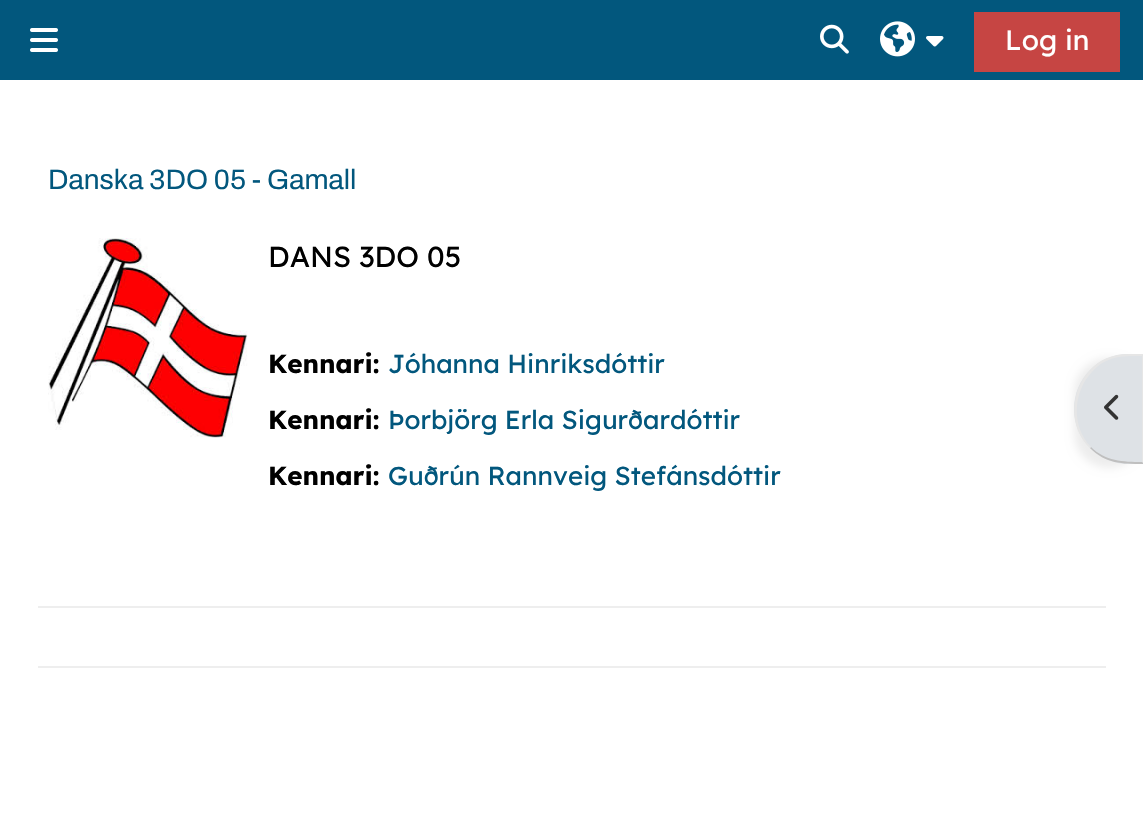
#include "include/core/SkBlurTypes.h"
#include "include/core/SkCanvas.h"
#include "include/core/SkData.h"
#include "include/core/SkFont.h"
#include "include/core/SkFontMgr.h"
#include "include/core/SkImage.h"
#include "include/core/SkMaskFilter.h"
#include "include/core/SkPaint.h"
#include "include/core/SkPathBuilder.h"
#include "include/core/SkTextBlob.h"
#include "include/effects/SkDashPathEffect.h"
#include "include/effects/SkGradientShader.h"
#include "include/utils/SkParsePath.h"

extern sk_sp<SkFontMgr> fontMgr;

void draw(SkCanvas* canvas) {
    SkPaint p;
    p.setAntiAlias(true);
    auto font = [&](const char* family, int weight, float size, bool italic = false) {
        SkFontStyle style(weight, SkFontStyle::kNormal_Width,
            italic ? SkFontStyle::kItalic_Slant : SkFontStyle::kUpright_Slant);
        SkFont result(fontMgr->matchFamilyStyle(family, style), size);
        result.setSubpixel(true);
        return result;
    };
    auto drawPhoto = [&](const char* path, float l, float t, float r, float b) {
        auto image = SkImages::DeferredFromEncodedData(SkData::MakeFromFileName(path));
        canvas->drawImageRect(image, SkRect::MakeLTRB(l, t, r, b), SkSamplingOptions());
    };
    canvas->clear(0xFFFFFFFF);
    p.setColor(0xFF02577D);
    canvas->drawRect(SkRect::MakeLTRB(0, 0, 1143, 80), p);
    drawPhoto("media/1.png", 30, 28, 58, 52);
    drawPhoto("media/2.png", 820, 24, 849, 54);
    drawPhoto("media/3.png", 880, 21, 915, 57);
    drawPhoto("media/4.png", 926, 36, 944, 47);
    p.setColor(0xFFC64543);
    canvas->drawRect(SkRect::MakeLTRB(974, 12, 1120, 72), p);
    auto font1 = font("Lexend Deca", 400, 28);
    p.setColor(0xFFFFFFFF);
    canvas->drawString("Log in", 1005, 50, font1, p);
    auto font2 = font("Archivo", 400, 28);
    p.setColor(0xFF02577D);
    canvas->drawString("Danska 3DO 05 - Gamall", 48, 189, font2, p);
    drawPhoto("media/5.png", 48, 238, 248, 438);
    auto font3 = font("Lexend Deca", 400, 29);
    p.setColor(0xFF000000);
    canvas->drawString("DANS 3DO 05", 268, 267, font3, p);
    auto font4 = font("Lexend Deca", 700, 26);
    canvas->drawString("Kennari:", 268, 373, font4, p);
    auto font5 = font("Lexend Deca", 400, 26);
    p.setColor(0xFF02577D);
    canvas->drawString("Jóhanna Hinriksdóttir", 388, 373, font5, p);
    p.setColor(0xFF000000);
    canvas->drawString("Kennari:", 268, 429, font4, p);
    p.setColor(0xFF02577D);
    canvas->drawString("Þorbjörg Erla Sigurðardóttir", 388, 429, font5, p);
    p.setColor(0xFF000000);
    canvas->drawString("Kennari:", 268, 485, font4, p);
    p.setColor(0xFF02577D);
    canvas->drawString("Guðrún Rannveig Stefánsdóttir", 388, 485, font5, p);
    p.setColor(0xFFEEEEEE);
    canvas->drawRect(SkRect::MakeLTRB(38, 606, 1106, 608), p);
    canvas->drawRect(SkRect::MakeLTRB(38, 666, 1106, 668), p);
    p.setColor(0x12000000);
    p.setMaskFilter(SkMaskFilter::MakeBlur(kNormal_SkBlurStyle, 4));
    canvas->drawRoundRect(SkRect::MakeLTRB(1074, 358, 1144, 468), 55, 55, p);
    p.setMaskFilter(nullptr);
    p.setColor(0xFFDEE2E6);
    canvas->drawPath(SkPathBuilder().moveTo(1129, 354).lineTo(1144, 354).lineTo(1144, 464).lineTo(1129, 464).cubicTo(1098.5f, 464, 1074, 439.5f, 1074, 409).cubicTo(1074, 378.5f, 1098.5f, 354, 1129, 354).close().detach(), p);
    p.setColor(0xFFE6E6E6);
    canvas->drawPath(SkPathBuilder().moveTo(1129, 354).cubicTo(1112, 354, 1099, 360, 1090, 370).lineTo(1092, 372).cubicTo(1106, 356, 1122, 356, 1142, 356).lineTo(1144, 354).close().detach(), p);
    canvas->drawPath(SkPathBuilder().moveTo(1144, 354).lineTo(1142, 356).lineTo(1142, 462).lineTo(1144, 464).close().detach(), p);
    p.setColor(0xFFBFBFBF);
    canvas->drawPath(SkPathBuilder().moveTo(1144, 464).cubicTo(1123, 464, 1106, 464, 1090, 448).lineTo(1091, 447).cubicTo(1105, 461, 1123, 462, 1142, 462).close().detach(), p);
    p.setColor(0xFFE6E6E6);
    canvas->drawPath(SkPathBuilder().moveTo(1090, 370).cubicTo(1070, 391, 1068, 427, 1090, 448).lineTo(1091, 447).cubicTo(1071, 426, 1073, 392, 1092, 372).close().detach(), p);
    drawPhoto("media/6.png", 1104, 394, 1119, 420);
}
